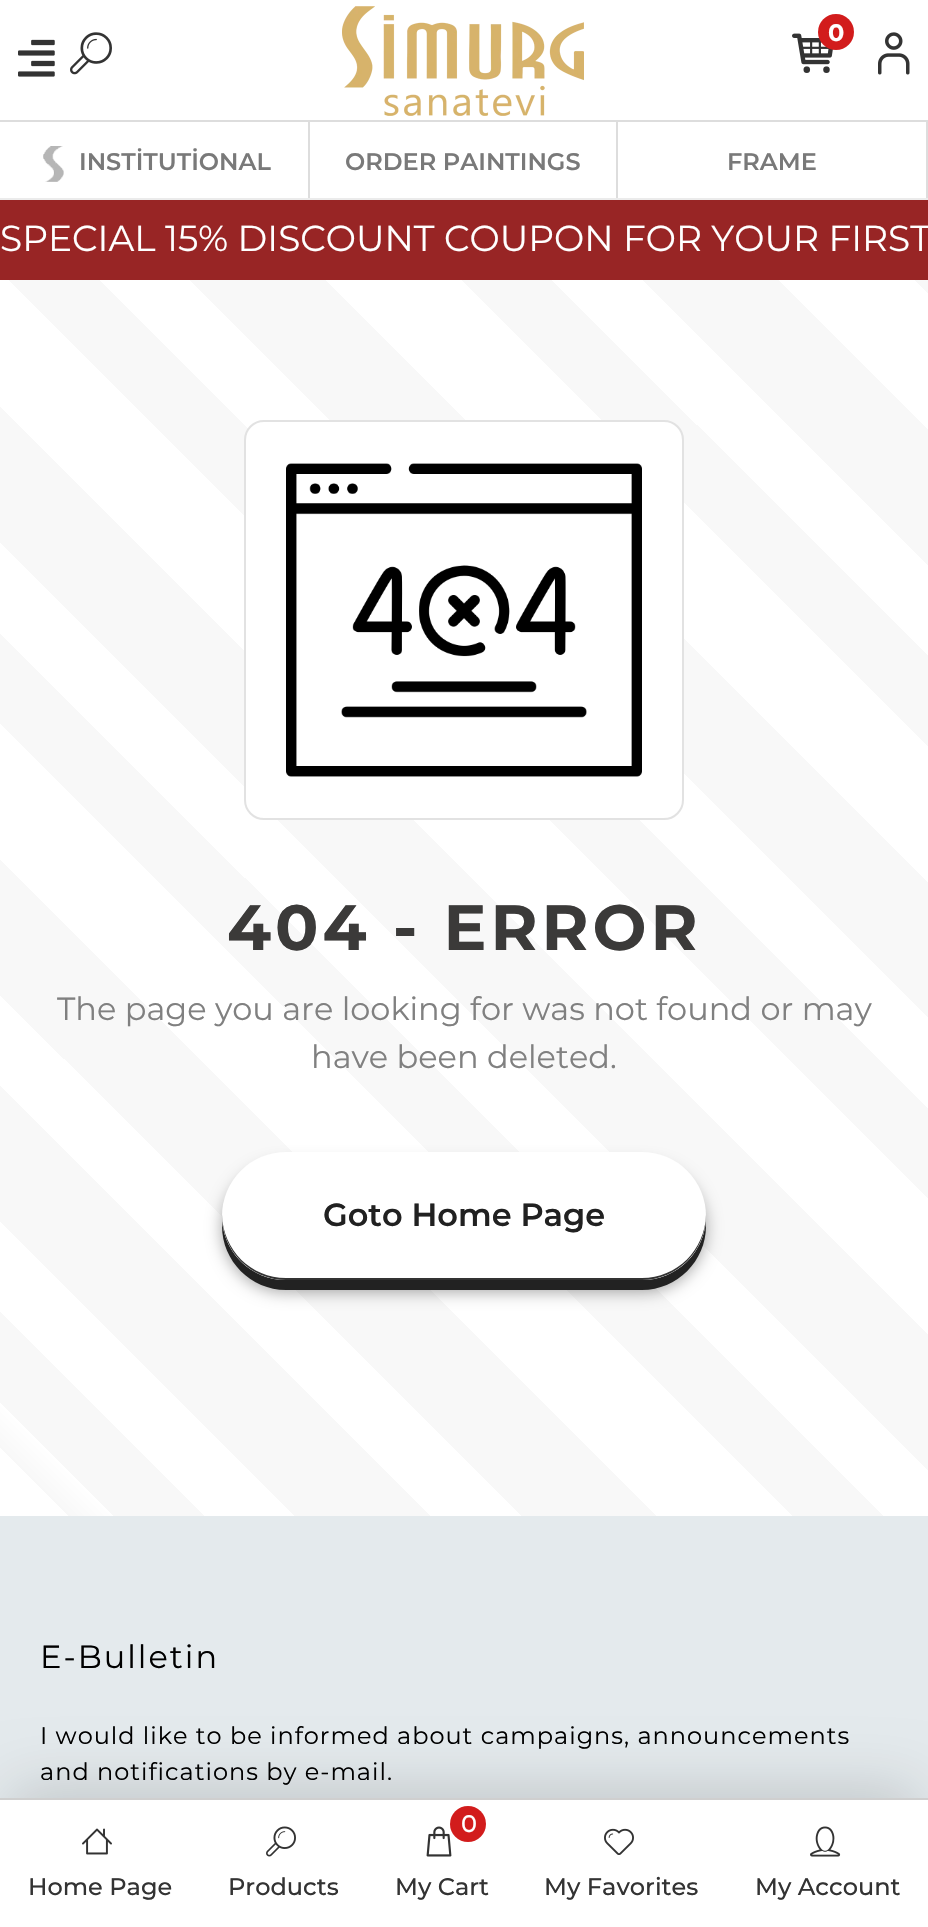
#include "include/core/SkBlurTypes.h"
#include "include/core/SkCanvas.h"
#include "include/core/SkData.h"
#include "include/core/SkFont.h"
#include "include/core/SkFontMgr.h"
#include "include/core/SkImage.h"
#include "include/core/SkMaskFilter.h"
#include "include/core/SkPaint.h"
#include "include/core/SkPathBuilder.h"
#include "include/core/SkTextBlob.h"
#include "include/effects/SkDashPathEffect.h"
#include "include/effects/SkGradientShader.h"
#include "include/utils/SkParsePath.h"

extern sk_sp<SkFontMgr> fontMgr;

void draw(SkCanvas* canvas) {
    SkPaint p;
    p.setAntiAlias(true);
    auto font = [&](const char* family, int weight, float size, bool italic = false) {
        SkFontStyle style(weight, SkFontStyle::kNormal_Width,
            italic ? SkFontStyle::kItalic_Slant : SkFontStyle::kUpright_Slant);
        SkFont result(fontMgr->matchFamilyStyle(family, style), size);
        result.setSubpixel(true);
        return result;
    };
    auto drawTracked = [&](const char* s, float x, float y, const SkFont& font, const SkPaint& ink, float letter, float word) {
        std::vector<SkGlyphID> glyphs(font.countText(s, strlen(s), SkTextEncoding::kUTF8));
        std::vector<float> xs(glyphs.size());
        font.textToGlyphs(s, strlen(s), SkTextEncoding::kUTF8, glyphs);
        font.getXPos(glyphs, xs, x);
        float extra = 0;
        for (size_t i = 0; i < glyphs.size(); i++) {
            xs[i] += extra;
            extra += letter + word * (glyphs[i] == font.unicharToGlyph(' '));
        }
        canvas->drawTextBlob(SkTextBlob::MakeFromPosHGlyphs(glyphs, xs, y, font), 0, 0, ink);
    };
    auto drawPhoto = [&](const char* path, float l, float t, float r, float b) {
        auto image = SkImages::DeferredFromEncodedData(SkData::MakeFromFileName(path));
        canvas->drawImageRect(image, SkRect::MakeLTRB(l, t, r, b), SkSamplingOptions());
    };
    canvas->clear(0xFFFFFFFF);
    {
        const SkColor colors[] = {0xFFFFFFFF, 0xFFFFFFFF, 0xFFF8F8F8, 0xFFFFFFFF, 0xFFFFFFFF, 0xFFF8F8F8, 0xFFF8F8F8, 0xFFFFFFFF, 0xFFF8F8F8, 0xFFF8F8F8, 0xFFFFFFFF, 0xFFF8F8F8, 0xFFF8F8F8, 0xFFFFFFFF, 0xFFFFFFFF, 0xFFF8F8F8, 0xFFFFFFFF, 0xFFFFFFFF, 0xFFF8F8F8, 0xFFFFFFFF, 0xFFFFFFFF, 0xFFF8F8F8, 0xFFF8F8F8, 0xFFFFFFFF, 0xFFF8F8F8, 0xFFF8F8F8, 0xFFFFFFFF, 0xFFFFFFFF, 0xFFF8F8F8, 0xFFFFFFFF, 0xFFFFFFFF, 0xFFF8F8F8, 0xFFFFFFFF, 0xFFFFFFFF, 0xFFF8F8F8, 0xFFF8F8F8, 0xFFFFFFFF, 0xFFF8F8F8, 0xFFF8F8F8, 0xFFFFFFFF, 0xFFFFFFFF, 0xFFF8F8F8, 0xFFFFFFFF, 0xFFFFFFFF, 0xFFF8F8F8, 0xFFFFFFFF, 0xFFFFFFFF, 0xFFF8F8F8, 0xFFF8F8F8, 0xFFFFFFFF, 0xFFF8F8F8, 0xFFF8F8F8, 0xFFFFFFFF, 0xFFFFFFFF, 0xFFF8F8F8, 0xFFFFFFFF, 0xFFFFFFFF, 0xFFF8F8F8, 0xFFFFFFFF, 0xFFF8F8F8, 0xFFF8F8F8, 0xFFFFFFFF, 0xFFF8F8F8, 0xFFF8F8F8, 0xFFFFFFFF, 0xFFFFFFFF, 0xFFF8F8F8, 0xFFFFFFFF, 0xFFFFFFFF, 0xFFF8F8F8, 0xFFFFFFFF, 0xFFF8F8F8, 0xFFF8F8F8, 0xFFFFFFFF, 0xFFF8F8F8, 0xFFF8F8F8, 0xFFFFFFFF, 0xFFFFFFFF, 0xFFF8F8F8, 0xFFFFFFFF, 0xFFFFFFFF, 0xFFF8F8F8, 0xFFFFFFFF, 0xFFFFFFFF, 0xFFF8F8F8, 0xFFF8F8F8, 0xFFFFFFFF, 0xFFF8F8F8, 0xFFF8F8F8, 0xFFFFFFFF, 0xFFFFFFFF, 0xFFF8F8F8, 0xFFFFFFFF, 0xFFFFFFFF, 0xFFF8F8F8, 0xFFF8F8F8, 0xFFFFFFFF, 0xFFF8F8F8, 0xFFF8F8F8, 0xFFFFFFFF, 0xFFF8F8F8, 0xFFF8F8F8, 0xFFFFFFFF, 0xFFFFFFFF, 0xFFF8F8F8, 0xFFFFFFFF, 0xFFFFFFFF, 0xFFF8F8F8, 0xFFFFFFFF, 0xFFFFFFFF, 0xFFF8F8F8, 0xFFF8F8F8, 0xFFFFFFFF, 0xFFF8F8F8, 0xFFF8F8F8, 0xFFFFFFFF, 0xFFFFFFFF, 0xFFF8F8F8, 0xFFFFFFFF, 0xFFFFFFFF, 0xFFF8F8F8, 0xFFFFFFFF, 0xFFF8F8F8, 0xFFF8F8F8, 0xFFFFFFFF, 0xFFF8F8F8, 0xFFF8F8F8, 0xFFFFFFFF, 0xFFFFFFFF, 0xFFF8F8F8, 0xFFFFFFFF, 0xFFFFFFFF, 0xFFF8F8F8, 0xFFF8F8F8, 0xFFFFFFFF, 0xFFF8F8F8, 0xFFF8F8F8, 0xFFFFFFFF, 0xFFF8F8F8, 0xFFF8F8F8, 0xFFFFFFFF, 0xFFFFFFFF, 0xFFF8F8F8, 0xFFFFFFFF, 0xFFFFFFFF, 0xFFF8F8F8, 0xFFF8F8F8, 0xFFFFFFFF, 0xFFF8F8F8, 0xFFF8F8F8, 0xFFFFFFFF, 0xFFF8F8F8, 0xFFF8F8F8, 0xFFFFFFFF, 0xFFFFFFFF, 0xFFF8F8F8, 0xFFFFFFFF, 0xFFFFFFFF, 0xFFF8F8F8, 0xFFFFFFFF, 0xFFFFFFFF, 0xFFF8F8F8, 0xFFF8F8F8, 0xFFFFFFFF, 0xFFF8F8F8, 0xFFF8F8F8, 0xFFFFFFFF, 0xFFFFFFFF, 0xFFF8F8F8, 0xFFFFFFFF, 0xFFFFFFFF, 0xFFF8F8F8, 0xFFF8F8F8, 0xFFFFFFFF, 0xFFF8F8F8, 0xFFF8F8F8, 0xFFFFFFFF, 0xFFF8F8F8, 0xFFF8F8F8, 0xFFFFFFFF, 0xFFFFFFFF, 0xFFF8F8F8, 0xFFFFFFFF, 0xFFFFFFFF, 0xFFF8F8F8, 0xFFFFFFFF, 0xFFFFFFFF, 0xFFF8F8F8, 0xFFF8F8F8, 0xFFFFFFFF, 0xFFF8F8F8, 0xFFF8F8F8, 0xFFFFFFFF, 0xFFFFFFFF, 0xFFF8F8F8, 0xFFFFFFFF, 0xFFFFFFFF, 0xFFF8F8F8, 0xFFF8F8F8, 0xFFFFFFFF, 0xFFF8F8F8, 0xFFF8F8F8, 0xFFFFFFFF, 0xFFF8F8F8, 0xFFF8F8F8, 0xFFFFFFFF, 0xFFFFFFFF, 0xFFF8F8F8, 0xFFFFFFFF, 0xFFFFFFFF, 0xFFF8F8F8, 0xFFFFFFFF, 0xFFFFFFFF, 0xFFF8F8F8, 0xFFF8F8F8, 0xFFFFFFFF, 0xFFF8F8F8, 0xFFF8F8F8, 0xFFFFFFFF, 0xFFFFFFFF, 0xFFF8F8F8, 0xFFFFFFFF, 0xFFFFFFFF, 0xFFF8F8F8, 0xFFF8F8F8, 0xFFFFFFFF, 0xFFF8F8F8, 0xFFF8F8F8, 0xFFFFFFFF, 0xFFF8F8F8, 0xFFF8F8F8, 0xFFFFFFFF, 0xFFFFFFFF, 0xFFF8F8F8, 0xFFFFFFFF, 0xFFFFFFFF, 0xFFF8F8F8, 0xFFFFFFFF, 0xFFFFFFFF, 0xFFF8F8F8, 0xFFF8F8F8, 0xFFFFFFFF, 0xFFF8F8F8, 0xFFF8F8F8, 0xFFFFFFFF, 0xFFFFFFFF, 0xFFF8F8F8, 0xFFFFFFFF, 0xFFFFFFFF, 0xFFF8F8F8, 0xFFFFFFFF, 0xFFFFFFFF, 0xFFF8F8F8, 0xFFF8F8F8, 0xFFFFFFFF, 0xFFF8F8F8, 0xFFF8F8F8};
        const float stops[] = {0, 0.01f, 0.01f, 0.01f, 0.02f, 0.02f, 0.03f, 0.03f, 0.03f, 0.04f, 0.04f, 0.04f, 0.05f, 0.05f, 0.06f, 0.06f, 0.06f, 0.07f, 0.07f, 0.07f, 0.08f, 0.08f, 0.09f, 0.09f, 0.09f, 0.1f, 0.1f, 0.11f, 0.11f, 0.11f, 0.12f, 0.12f, 0.12f, 0.13f, 0.13f, 0.14f, 0.14f, 0.14f, 0.15f, 0.15f, 0.16f, 0.16f, 0.16f, 0.17f, 0.17f, 0.17f, 0.18f, 0.18f, 0.19f, 0.19f, 0.19f, 0.2f, 0.2f, 0.21f, 0.21f, 0.21f, 0.22f, 0.22f, 0.23f, 0.23f, 0.24f, 0.24f, 0.24f, 0.25f, 0.25f, 0.26f, 0.26f, 0.26f, 0.27f, 0.27f, 0.28f, 0.28f, 0.29f, 0.29f, 0.29f, 0.3f, 0.3f, 0.31f, 0.31f, 0.31f, 0.32f, 0.32f, 0.32f, 0.33f, 0.33f, 0.34f, 0.34f, 0.34f, 0.35f, 0.35f, 0.36f, 0.36f, 0.36f, 0.37f, 0.37f, 0.38f, 0.38f, 0.38f, 0.39f, 0.39f, 0.39f, 0.4f, 0.4f, 0.41f, 0.41f, 0.41f, 0.42f, 0.42f, 0.42f, 0.43f, 0.43f, 0.44f, 0.44f, 0.44f, 0.45f, 0.45f, 0.46f, 0.46f, 0.46f, 0.47f, 0.47f, 0.48f, 0.48f, 0.49f, 0.49f, 0.49f, 0.5f, 0.5f, 0.51f, 0.51f, 0.51f, 0.52f, 0.52f, 0.53f, 0.53f, 0.53f, 0.54f, 0.54f, 0.54f, 0.55f, 0.55f, 0.56f, 0.56f, 0.56f, 0.57f, 0.57f, 0.58f, 0.58f, 0.58f, 0.59f, 0.59f, 0.59f, 0.6f, 0.6f, 0.61f, 0.61f, 0.61f, 0.62f, 0.62f, 0.62f, 0.63f, 0.63f, 0.64f, 0.64f, 0.64f, 0.65f, 0.65f, 0.66f, 0.66f, 0.66f, 0.67f, 0.67f, 0.68f, 0.68f, 0.68f, 0.69f, 0.69f, 0.69f, 0.7f, 0.7f, 0.71f, 0.71f, 0.71f, 0.72f, 0.72f, 0.72f, 0.73f, 0.73f, 0.74f, 0.74f, 0.74f, 0.75f, 0.75f, 0.76f, 0.76f, 0.76f, 0.77f, 0.77f, 0.78f, 0.78f, 0.78f, 0.79f, 0.79f, 0.79f, 0.8f, 0.8f, 0.81f, 0.81f, 0.81f, 0.82f, 0.82f, 0.82f, 0.83f, 0.83f, 0.84f, 0.84f, 0.84f, 0.85f, 0.85f, 0.86f, 0.86f, 0.86f, 0.87f, 0.87f, 0.88f, 0.88f, 0.88f, 0.89f, 0.89f, 0.89f, 0.9f, 0.9f, 0.91f, 0.91f, 0.91f, 0.92f, 0.92f, 0.92f, 0.93f, 0.93f, 0.94f, 0.94f, 0.94f, 0.95f, 0.95f, 0.96f, 0.96f, 0.96f, 0.97f, 0.97f, 0.97f, 0.98f, 0.98f, 0.99f, 0.99f, 0.99f, 1};
        const SkPoint ends[] = {{-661, 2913}, {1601, 650}};
        p.setShader(SkGradientShader::MakeLinear(ends, colors, stops, 257, SkTileMode::kClamp));
        p.setAlpha(255);
    }
    canvas->drawRect(SkRect::MakeLTRB(0, 280, 928, 1516), p);
    drawPhoto("media/1.png", 18, 39, 55, 77);
    drawPhoto("media/2.png", 70, 32, 112, 75);
    drawPhoto("media/3.png", 342, 6, 584, 116);
    drawPhoto("media/4.png", 792, 33, 833, 73);
    p.setShader(nullptr);
    p.setColor(0xFFD21C1C);
    canvas->drawCircle(836, 32, 18, p);
    auto font1 = font("Montserrat", 700, 24);
    p.setColor(0xFFFFFFFF);
    canvas->drawString("0", 828, 41, font1, p);
    drawPhoto("media/5.png", 878, 32, 910, 75);
    {
        const struct { float l, t, r, b; SkColor color; } items[] = {
            {0, 198, 928, 200, 0xFFEBEBEB},
            {0, 120, 928, 122, 0xFFDDDDDD},
            {308, 120, 310, 198, 0xFFDDDDDD},
        };
        for (auto [l, t, r, b, color] : items) {
            p.setColor(color);
            canvas->drawRect(SkRect::MakeLTRB(l, t, r, b), p);
        }
    }
    drawPhoto("media/6.png", 43, 146, 64, 182);
    auto font2 = font("Montserrat", 600, 24);
    p.setColor(0xFF797979);
    canvas->drawString("INSTİTUTİONAL", 79, 170, font2, p);
    p.setColor(0xFFDDDDDD);
    canvas->drawRect(SkRect::MakeLTRB(616, 120, 618, 198), p);
    p.setColor(0xFF797979);
    canvas->drawString("ORDER PAINTINGS", 345, 170, font2, p);
    p.setColor(0xFFDDDDDD);
    canvas->drawRect(SkRect::MakeLTRB(926, 120, 928, 198), p);
    p.setColor(0xFF797979);
    canvas->drawString("FRAME", 727, 170, font2, p);
    p.setColor(0xFF982525);
    canvas->drawRect(SkRect::MakeLTRB(0, 200, 928, 280), p);
    auto font3 = font("Montserrat", 400, 36);
    p.setColor(0xFFFFFFFF);
    canvas->drawString("SPECIAL 15% DISCOUNT COUPON FOR YOUR FIRST", 0, 251, font3, p);
    canvas->drawRoundRect(SkRect::MakeLTRB(245, 421, 683, 819), 19, 19, p);
    p.setStyle(SkPaint::kStroke_Style);
    p.setStrokeWidth(2);
    p.setColor(0xFFE2E2E2);
    canvas->drawRoundRect(SkRect::MakeLTRB(245, 421, 683, 819), 19, 19, p);
    drawPhoto("media/7.png", 286, 463, 642, 777);
    auto font4 = font("Montserrat", 700, 64);
    p.setStyle(SkPaint::kFill_Style);
    p.setColor(0xFF3B3A39);
    drawTracked("404 - ERROR", 227, 950, font4, p, 4, 0);
    auto font5 = font("Montserrat", 400, 32);
    p.setColor(0xFF808080);
    canvas->drawString("The page you are looking for was not found or may", 57, 1020, font5, p);
    canvas->drawString("have been deleted.", 311, 1068, font5, p);
    p.setColor(0x59000000);
    p.setMaskFilter(SkMaskFilter::MakeBlur(kNormal_SkBlurStyle, 8));
    canvas->drawRoundRect(SkRect::MakeLTRB(222, 1164, 706, 1292), 64, 64, p);
    p.setMaskFilter(nullptr);
    p.setColor(0xFF222222);
    canvas->drawPath(SkPathBuilder().moveTo(222, 1221).lineTo(222, 1226).cubicTo(222, 1261, 251, 1290, 286, 1290).lineTo(642, 1290).cubicTo(677, 1290, 706, 1261, 706, 1226).lineTo(706, 1221).cubicTo(703, 1254, 676, 1280, 642, 1280).lineTo(286, 1280).cubicTo(252, 1280, 225, 1254, 222, 1221).close().detach(), p);
    p.setColor(0xFFFFFFFF);
    canvas->drawRoundRect(SkRect::MakeLTRB(222, 1152, 706, 1280), 64, 64, p);
    p.setColor(0xFF333333);
    canvas->drawPath(SkPathBuilder().moveTo(222, 1215).lineTo(222, 1216).cubicTo(222, 1251, 251, 1280, 286, 1280).lineTo(642, 1280).cubicTo(677, 1280, 706, 1251, 706, 1216).lineTo(706, 1215).cubicTo(705, 1250, 677, 1278, 642, 1278).lineTo(286, 1278).cubicTo(251, 1278, 223, 1250, 222, 1215).close().detach(), p);
    auto font6 = font("Montserrat", 600, 32);
    p.setColor(0xFF212121);
    canvas->drawString("Goto Home Page", 323, 1226, font6, p);
    p.setColor(0xFFE4EAED);
    canvas->drawRect(SkRect::MakeLTRB(0, 1516, 928, 1798), p);
    p.setColor(0xFF000000);
    drawTracked("E-Bulletin", 40, 1668, font5, p, 2, 0);
    auto font7 = font("Montserrat", 400, 24);
    drawTracked("I would like to be informed about campaigns, announcements", 40, 1744, font7, p, 1, 0);
    drawTracked("and notifications by e-mail.", 40, 1780, font7, p, 1, 0);
    p.setColor(0x26000000);
    p.setMaskFilter(SkMaskFilter::MakeBlur(kNormal_SkBlurStyle, 30));
    canvas->drawRect(SkRect::MakeLTRB(10, 1788, 918, 1898), p);
    p.setMaskFilter(nullptr);
    p.setColor(0xFFFFFFFF);
    canvas->drawRect(SkRect::MakeLTRB(0, 1800, 928, 1927), p);
    p.setColor(0xFFCFCFCF);
    canvas->drawRect(SkRect::MakeLTRB(0, 1798, 928, 1800), p);
    drawPhoto("media/8.png", 82, 1828, 112, 1855);
    auto font8 = font("Montserrat", 500, 24);
    p.setColor(0xFF333333);
    canvas->drawString("Home Page", 28, 1895, font8, p);
    drawPhoto("media/9.png", 266, 1826, 296, 1857);
    canvas->drawString("Products", 228, 1895, font8, p);
    drawPhoto("media/10.png", 426, 1826, 452, 1857);
    p.setColor(0xFFD21C1C);
    canvas->drawCircle(468, 1824, 18, p);
    p.setColor(0xFFFFFFFF);
    canvas->drawString("0", 461, 1832, font8, p);
    p.setColor(0xFF333333);
    canvas->drawString("My Cart", 395, 1895, font8, p);
    drawPhoto("media/11.png", 604, 1828, 634, 1855);
    canvas->drawString("My Favorites", 544, 1895, font8, p);
    drawPhoto("media/12.png", 810, 1826, 841, 1857);
    canvas->drawString("My Account", 755, 1895, font8, p);
}
